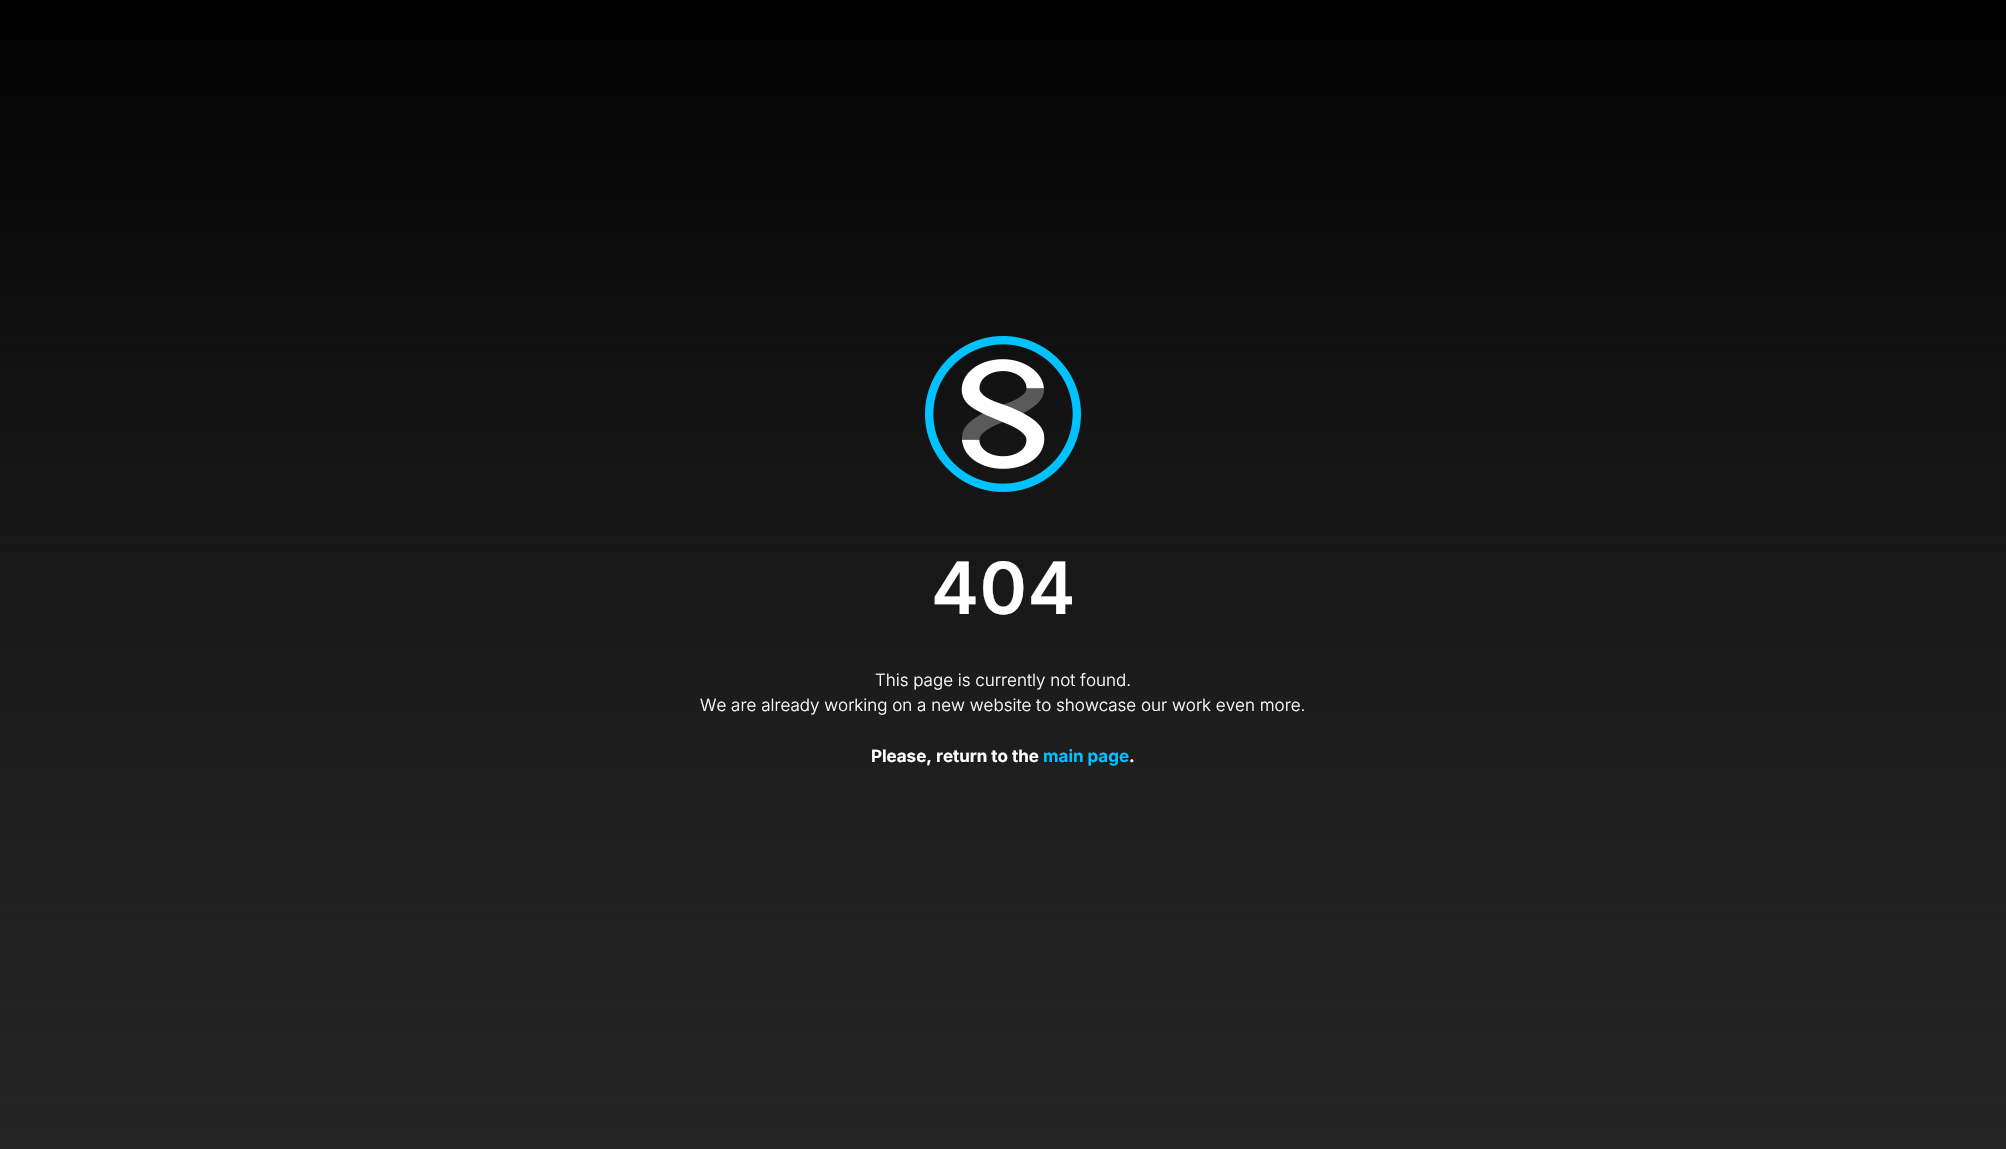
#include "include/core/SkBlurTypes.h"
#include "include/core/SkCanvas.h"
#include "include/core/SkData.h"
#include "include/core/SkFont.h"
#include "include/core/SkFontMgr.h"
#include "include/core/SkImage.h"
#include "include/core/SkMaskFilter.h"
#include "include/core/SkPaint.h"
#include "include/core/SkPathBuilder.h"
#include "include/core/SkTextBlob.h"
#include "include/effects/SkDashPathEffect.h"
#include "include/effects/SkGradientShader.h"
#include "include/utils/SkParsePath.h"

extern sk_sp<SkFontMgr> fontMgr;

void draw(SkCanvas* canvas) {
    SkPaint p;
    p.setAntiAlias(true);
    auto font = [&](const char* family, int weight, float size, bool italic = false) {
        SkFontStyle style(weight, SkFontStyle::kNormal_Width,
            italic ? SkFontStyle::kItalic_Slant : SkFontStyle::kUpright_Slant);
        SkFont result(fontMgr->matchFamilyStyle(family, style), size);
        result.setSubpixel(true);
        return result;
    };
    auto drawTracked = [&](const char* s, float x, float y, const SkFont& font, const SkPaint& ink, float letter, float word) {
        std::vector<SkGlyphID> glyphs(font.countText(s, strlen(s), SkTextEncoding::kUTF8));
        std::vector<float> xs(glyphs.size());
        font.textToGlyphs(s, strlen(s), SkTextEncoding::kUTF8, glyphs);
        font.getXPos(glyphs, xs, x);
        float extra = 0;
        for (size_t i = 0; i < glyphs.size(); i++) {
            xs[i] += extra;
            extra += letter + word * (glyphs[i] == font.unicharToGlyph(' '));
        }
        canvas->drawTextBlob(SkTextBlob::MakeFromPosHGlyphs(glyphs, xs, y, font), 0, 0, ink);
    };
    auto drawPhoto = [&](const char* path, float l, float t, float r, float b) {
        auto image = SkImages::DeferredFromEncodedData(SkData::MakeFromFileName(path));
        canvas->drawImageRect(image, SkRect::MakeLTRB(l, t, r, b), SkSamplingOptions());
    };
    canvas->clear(0xFFFFFFFF);
    {
        const SkColor colors[] = {0xFFCCCCCC, 0xFF777777};
        const float stops[] = {0, 1};
        const SkPoint ends[] = {{1003, 0}, {1003, 1149}};
        p.setShader(SkGradientShader::MakeLinear(ends, colors, stops, 2, SkTileMode::kClamp));
        p.setAlpha(255);
    }
    canvas->drawRect(SkRect::MakeLTRB(0, 23, 2006, 1149), p);
    {
        const SkColor colors[] = {0xFF000000, 0xB3000000};
        const float stops[] = {0, 1};
        const SkPoint ends[] = {{1003, 0}, {1003, 1149}};
        p.setShader(SkGradientShader::MakeLinear(ends, colors, stops, 2, SkTileMode::kClamp));
        p.setAlpha(255);
    }
    canvas->drawRect(SkRect::MakeLTRB(0, 0, 2006, 1149), p);
    drawPhoto("media/1.png", 925, 336, 1081, 492);
    auto font1 = font("Inter", 600, 72);
    p.setShader(nullptr);
    p.setColor(0xFFFFFFFF);
    drawTracked("404", 931, 614, font1, p, 0.5f, 0);
    auto font2 = font("Inter", 300, 17);
    canvas->drawString("This page is currently not found.", 875, 686, font2, p);
    canvas->drawString("We are already working on a new website to showcase our work even more.", 700, 711, font2, p);
    auto font3 = font("Inter", 700, 17);
    canvas->drawString("Please, return to the", 871, 762, font3, p);
    p.setColor(0xFF00C2FF);
    canvas->drawString("main page", 1043, 762, font3, p);
    p.setColor(0xFFFFFFFF);
    canvas->drawString(".", 1129, 762, font3, p);
}
